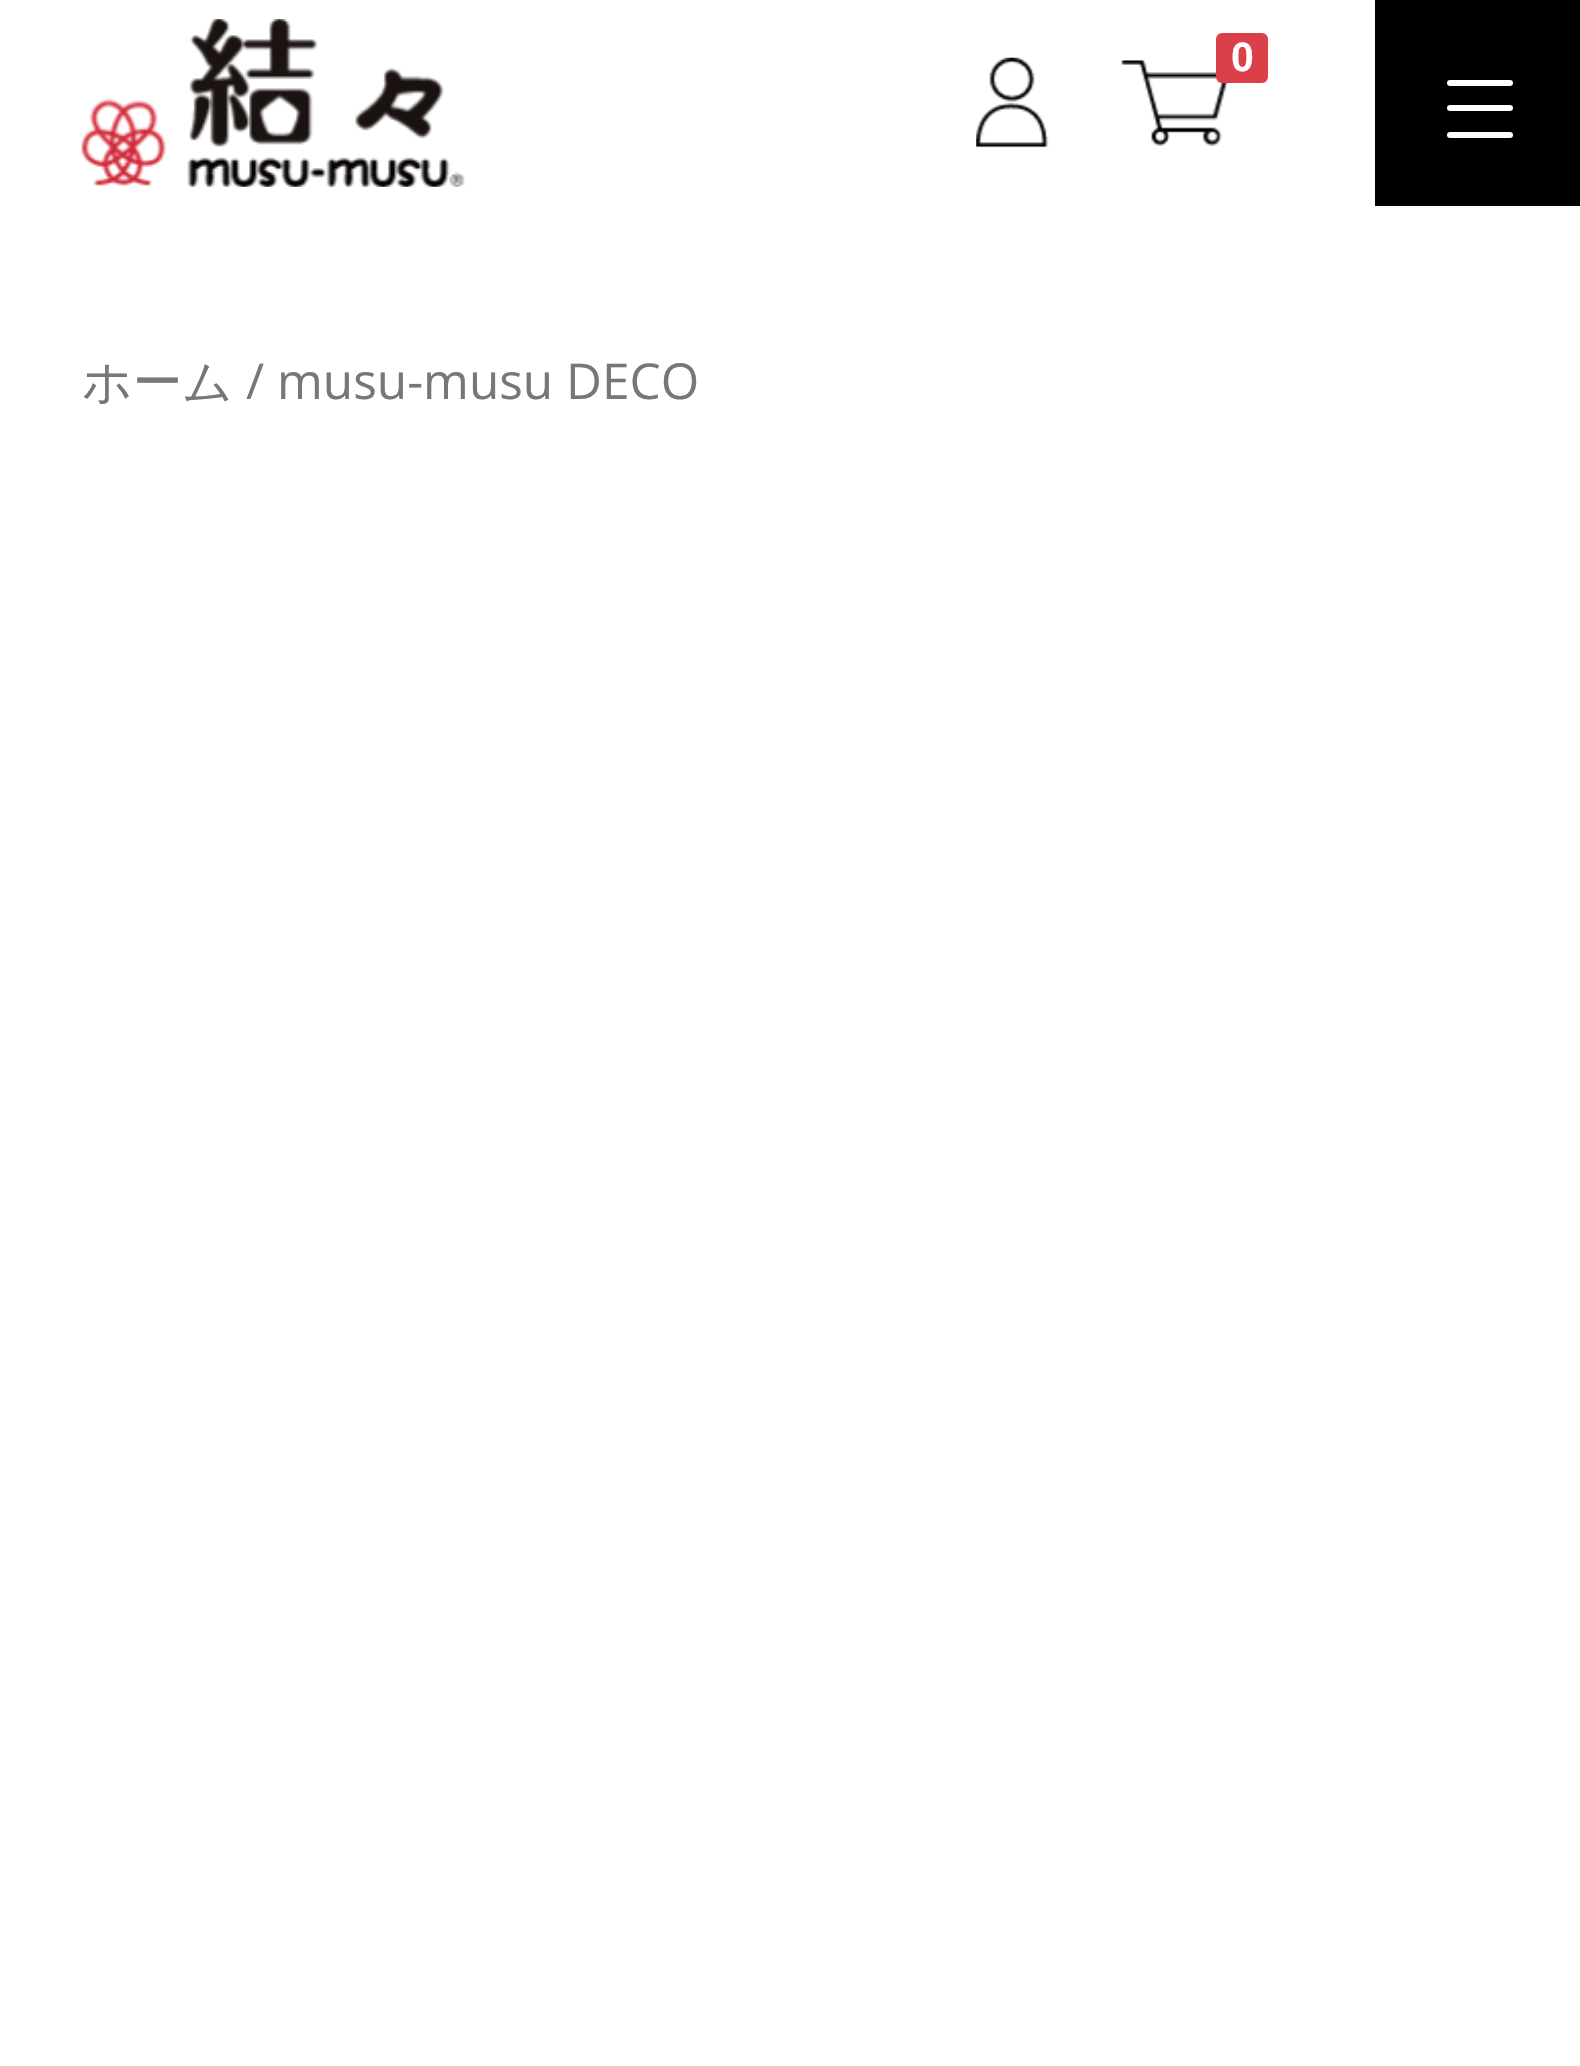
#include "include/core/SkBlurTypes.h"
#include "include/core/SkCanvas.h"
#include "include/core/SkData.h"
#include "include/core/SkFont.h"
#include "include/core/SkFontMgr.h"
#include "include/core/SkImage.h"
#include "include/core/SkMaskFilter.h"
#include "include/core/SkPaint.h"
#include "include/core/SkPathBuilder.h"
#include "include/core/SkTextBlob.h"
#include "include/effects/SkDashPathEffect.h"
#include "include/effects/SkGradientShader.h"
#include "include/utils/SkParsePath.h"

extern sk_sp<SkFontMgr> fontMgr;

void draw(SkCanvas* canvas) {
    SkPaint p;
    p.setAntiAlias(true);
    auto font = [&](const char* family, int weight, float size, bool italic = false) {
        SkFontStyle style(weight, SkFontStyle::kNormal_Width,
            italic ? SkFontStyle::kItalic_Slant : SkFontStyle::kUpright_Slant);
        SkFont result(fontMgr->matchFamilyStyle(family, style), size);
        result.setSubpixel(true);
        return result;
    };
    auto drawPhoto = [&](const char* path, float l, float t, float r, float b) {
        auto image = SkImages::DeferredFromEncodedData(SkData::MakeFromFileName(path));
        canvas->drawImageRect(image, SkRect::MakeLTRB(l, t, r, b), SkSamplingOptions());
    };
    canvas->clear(0xFFFFFFFF);
    drawPhoto("media/1.png", 81, 19, 465, 187);
    drawPhoto("media/2.png", 976, 57, 1049, 148);
    drawPhoto("media/3.png", 1121, 60, 1228, 146);
    p.setColor(0xFFDB4049);
    canvas->drawRoundRect(SkRect::MakeLTRB(1216, 33, 1268, 83), 6, 6, p);
    auto font1 = font("Liberation Sans", 700, 41);
    p.setColor(0xFFFFFFFF);
    canvas->drawString("0", 1231, 71, font1, p);
    auto font2 = font("WenQuanYi Zen Hei", 500, 49.5f);
    p.setColor(0xFF777777);
    canvas->drawString("ホーム", 82, 399, font2, p);
    auto font3 = font("Open Sans", 400, 49.5f);
    canvas->drawString("/ musu-musu DECO", 246, 399, font3, p);
    p.setColor(0xFF000000);
    canvas->drawRect(SkRect::MakeLTRB(1375, 0, 1580, 206), p);
    p.setColor(0xFFFFFFFF);
    canvas->drawRoundRect(SkRect::MakeLTRB(1447, 80, 1513, 86), 3, 3, p);
    canvas->drawRoundRect(SkRect::MakeLTRB(1447, 105, 1513, 111), 3, 3, p);
    canvas->drawRoundRect(SkRect::MakeLTRB(1447, 132, 1513, 138), 3, 3, p);
}
